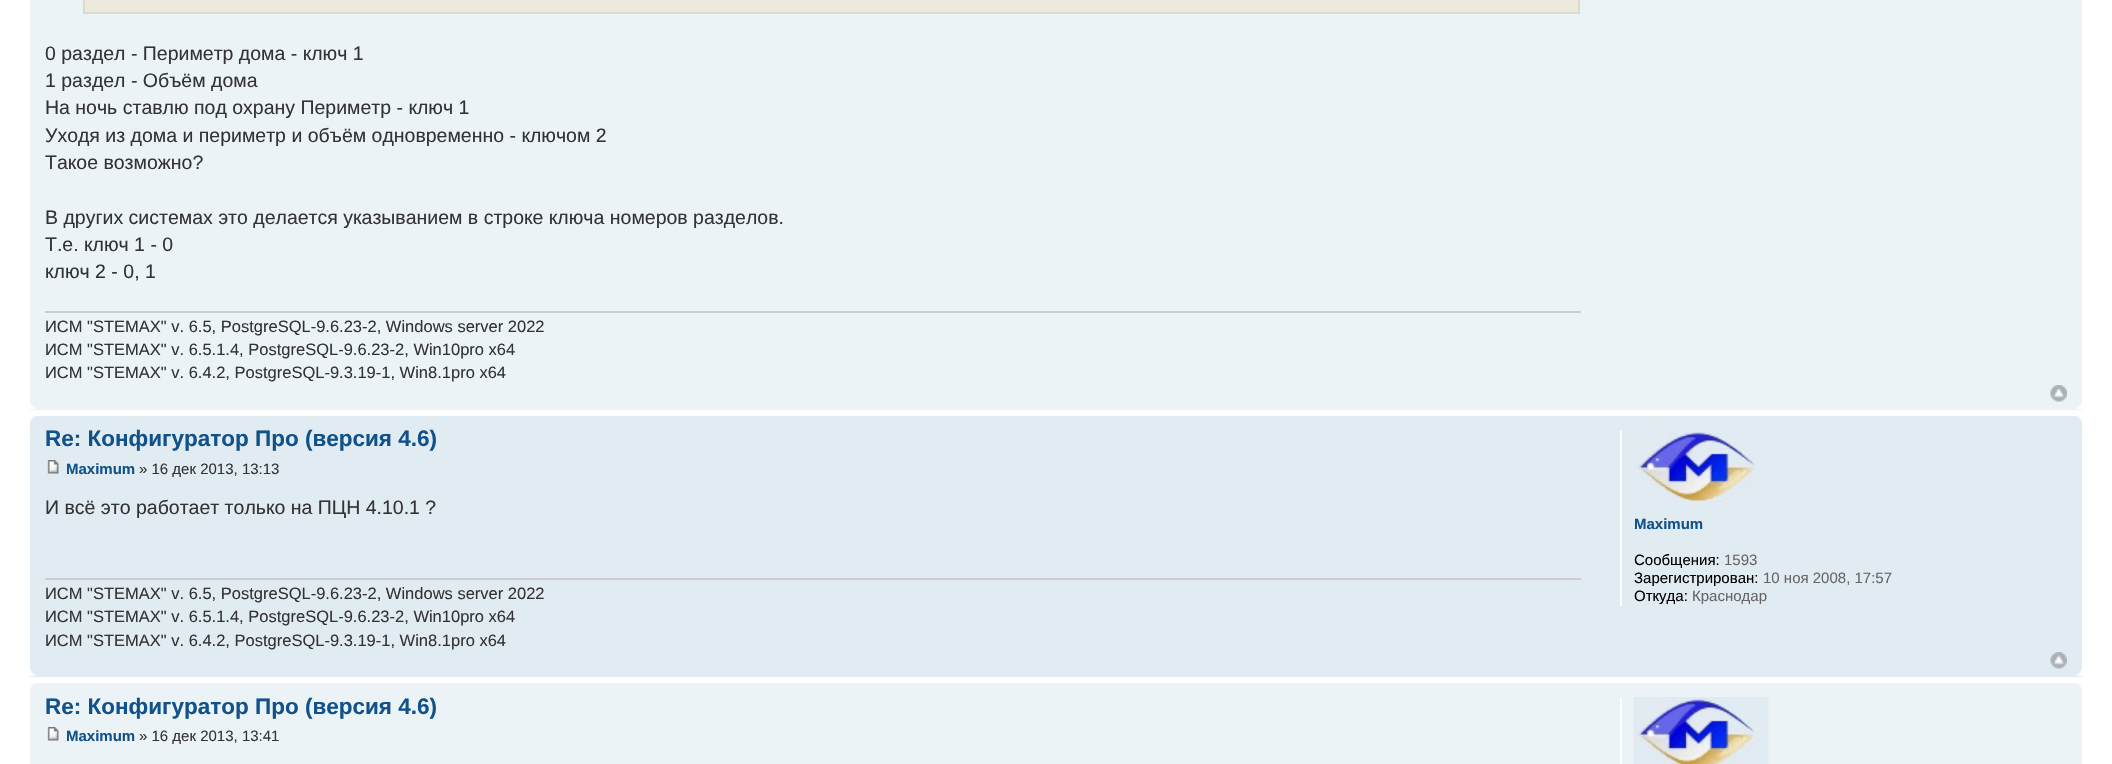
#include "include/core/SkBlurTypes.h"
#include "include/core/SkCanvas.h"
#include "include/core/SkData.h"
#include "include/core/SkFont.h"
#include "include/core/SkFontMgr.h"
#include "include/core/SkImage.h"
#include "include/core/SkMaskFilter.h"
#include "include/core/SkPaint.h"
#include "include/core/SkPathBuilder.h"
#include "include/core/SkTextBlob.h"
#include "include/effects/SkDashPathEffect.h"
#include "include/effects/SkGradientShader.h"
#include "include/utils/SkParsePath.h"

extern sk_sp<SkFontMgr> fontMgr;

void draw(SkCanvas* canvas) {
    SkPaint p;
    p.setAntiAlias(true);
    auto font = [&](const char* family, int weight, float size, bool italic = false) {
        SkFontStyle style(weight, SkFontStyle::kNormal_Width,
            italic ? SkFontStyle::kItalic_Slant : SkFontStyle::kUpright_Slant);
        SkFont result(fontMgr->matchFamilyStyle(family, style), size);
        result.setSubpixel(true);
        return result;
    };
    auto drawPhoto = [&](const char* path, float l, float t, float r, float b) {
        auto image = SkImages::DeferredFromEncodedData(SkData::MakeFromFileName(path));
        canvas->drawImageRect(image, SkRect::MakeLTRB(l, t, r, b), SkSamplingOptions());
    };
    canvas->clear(0xFFFFFFFF);
    p.setColor(0xFFECF3F7);
    canvas->drawRect(SkRect::MakeLTRB(30, 0, 2082, 410), p);
    p.setColor(0xFFEBEADD);
    canvas->drawRect(SkRect::MakeLTRB(84, -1, 1579, 13), p);
    p.setStyle(SkPaint::kStroke_Style);
    p.setStrokeWidth(2);
    p.setColor(0xFFDBDBCE);
    canvas->drawRect(SkRect::MakeLTRB(84, -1, 1579, 13), p);
    auto font1 = font("Liberation Sans", 400, 19.5f);
    p.setStyle(SkPaint::kFill_Style);
    p.setColor(0xFF333333);
    {
        const struct { const char* s; float x, y; } items[] = {
            {"0 раздел - Периметр дома - ключ 1", 45, 60},
            {"1 раздел - Объём дома", 45, 87},
            {"На ночь ставлю под охрану Периметр - ключ 1", 45, 114},
            {"Уходя из дома и периметр и объём одновременно - ключом 2", 45, 142},
            {"Такое возможно?", 45, 169},
            {"В других системах это делается указыванием в строке ключа номеров разделов.", 45, 224},
            {"Т.е. ключ 1 - 0", 45, 251},
            {"ключ 2 - 0, 1", 45, 278},
        };
        for (auto [s, x, y] : items) {
            canvas->drawString(s, x, y, font1, p);
        }
    }
    p.setColor(0xFFCCCCCC);
    canvas->drawRect(SkRect::MakeLTRB(45, 311, 1581, 313), p);
    auto font2 = font("Liberation Sans", 400, 16.5f);
    p.setColor(0xFF333333);
    {
        const struct { const char* s; float x, y; } items[] = {
            {"ИСМ \"STEMAX\" v. 6.5, PostgreSQL-9.6.23-2, Windows server 2022", 45, 332},
            {"ИСМ \"STEMAX\" v. 6.5.1.4, PostgreSQL-9.6.23-2, Win10pro x64", 45, 355},
            {"ИСМ \"STEMAX\" v. 6.4.2, PostgreSQL-9.3.19-1, Win8.1pro x64", 45, 378},
        };
        for (auto [s, x, y] : items) {
            canvas->drawString(s, x, y, font2, p);
        }
    }
    drawPhoto("media/1.png", 2050, 385, 2067, 402);
    drawPhoto("media/2.png", 30, 402, 37, 409);
    drawPhoto("media/3.png", 2075, 402, 2082, 409);
    p.setColor(0xFFE1EBF2);
    canvas->drawRect(SkRect::MakeLTRB(30, 416, 2082, 677), p);
    drawPhoto("media/4.png", 30, 416, 37, 422);
    drawPhoto("media/5.png", 2075, 416, 2082, 422);
    auto font3 = font("Liberation Sans", 700, 22.5f);
    p.setColor(0xFF105289);
    canvas->drawString("Re: Конфигуратор Про (версия 4.6)", 45, 446, font3, p);
    drawPhoto("media/6.png", 47, 460, 59, 474);
    auto font4 = font("Liberation Sans", 700, 15);
    canvas->drawString("Maximum", 66, 474, font4, p);
    auto font5 = font("Liberation Sans", 400, 15);
    p.setColor(0xFF333333);
    canvas->drawString("» 16 дек 2013, 13:13", 139, 474, font5, p);
    canvas->drawString("И всё это работает только на ПЦН 4.10.1 ?", 45, 514, font1, p);
    p.setColor(0xFFCCCCCC);
    canvas->drawRect(SkRect::MakeLTRB(45, 578, 1581, 580), p);
    p.setColor(0xFF333333);
    {
        const struct { const char* s; float x, y; } items[] = {
            {"ИСМ \"STEMAX\" v. 6.5, PostgreSQL-9.6.23-2, Windows server 2022", 45, 599},
            {"ИСМ \"STEMAX\" v. 6.5.1.4, PostgreSQL-9.6.23-2, Win10pro x64", 45, 622},
            {"ИСМ \"STEMAX\" v. 6.4.2, PostgreSQL-9.3.19-1, Win8.1pro x64", 45, 646},
        };
        for (auto [s, x, y] : items) {
            canvas->drawString(s, x, y, font2, p);
        }
    }
    p.setColor(0xFFFFFFFF);
    canvas->drawRect(SkRect::MakeLTRB(1620, 431, 1622, 606), p);
    drawPhoto("media/7.png", 1633, 430, 1756, 503);
    p.setColor(0xFF105289);
    canvas->drawString("Maximum", 1634, 529, font4, p);
    p.setColor(0xFF000000);
    canvas->drawString("Сообщения:", 1634, 565, font5, p);
    p.setColor(0xFF666666);
    canvas->drawString("1593", 1724, 565, font5, p);
    p.setColor(0xFF000000);
    canvas->drawString("Зарегистрирован:", 1634, 583, font5, p);
    p.setColor(0xFF666666);
    canvas->drawString("10 ноя 2008, 17:57", 1763, 583, font5, p);
    p.setColor(0xFF000000);
    canvas->drawString("Откуда:", 1634, 601, font5, p);
    p.setColor(0xFF666666);
    canvas->drawString("Краснодар", 1692, 601, font5, p);
    drawPhoto("media/8.png", 2050, 652, 2067, 669);
    drawPhoto("media/9.png", 30, 669, 37, 676);
    drawPhoto("media/10.png", 2075, 669, 2082, 676);
    p.setColor(0xFFECF3F7);
    canvas->drawRect(SkRect::MakeLTRB(30, 683, 2082, 764), p);
    drawPhoto("media/11.png", 30, 683, 36, 689);
    drawPhoto("media/12.png", 2076, 683, 2082, 689);
    p.setColor(0xFF105289);
    canvas->drawString("Re: Конфигуратор Про (версия 4.6)", 45, 714, font3, p);
    drawPhoto("media/13.png", 47, 727, 59, 741);
    canvas->drawString("Maximum", 66, 741, font4, p);
    p.setColor(0xFF333333);
    canvas->drawString("» 16 дек 2013, 13:41", 139, 741, font5, p);
    p.setColor(0xFFFFFFFF);
    canvas->drawRect(SkRect::MakeLTRB(1620, 698, 1622, 764), p);
    drawPhoto("media/14.png", 1633, 697, 1769, 764);
}
